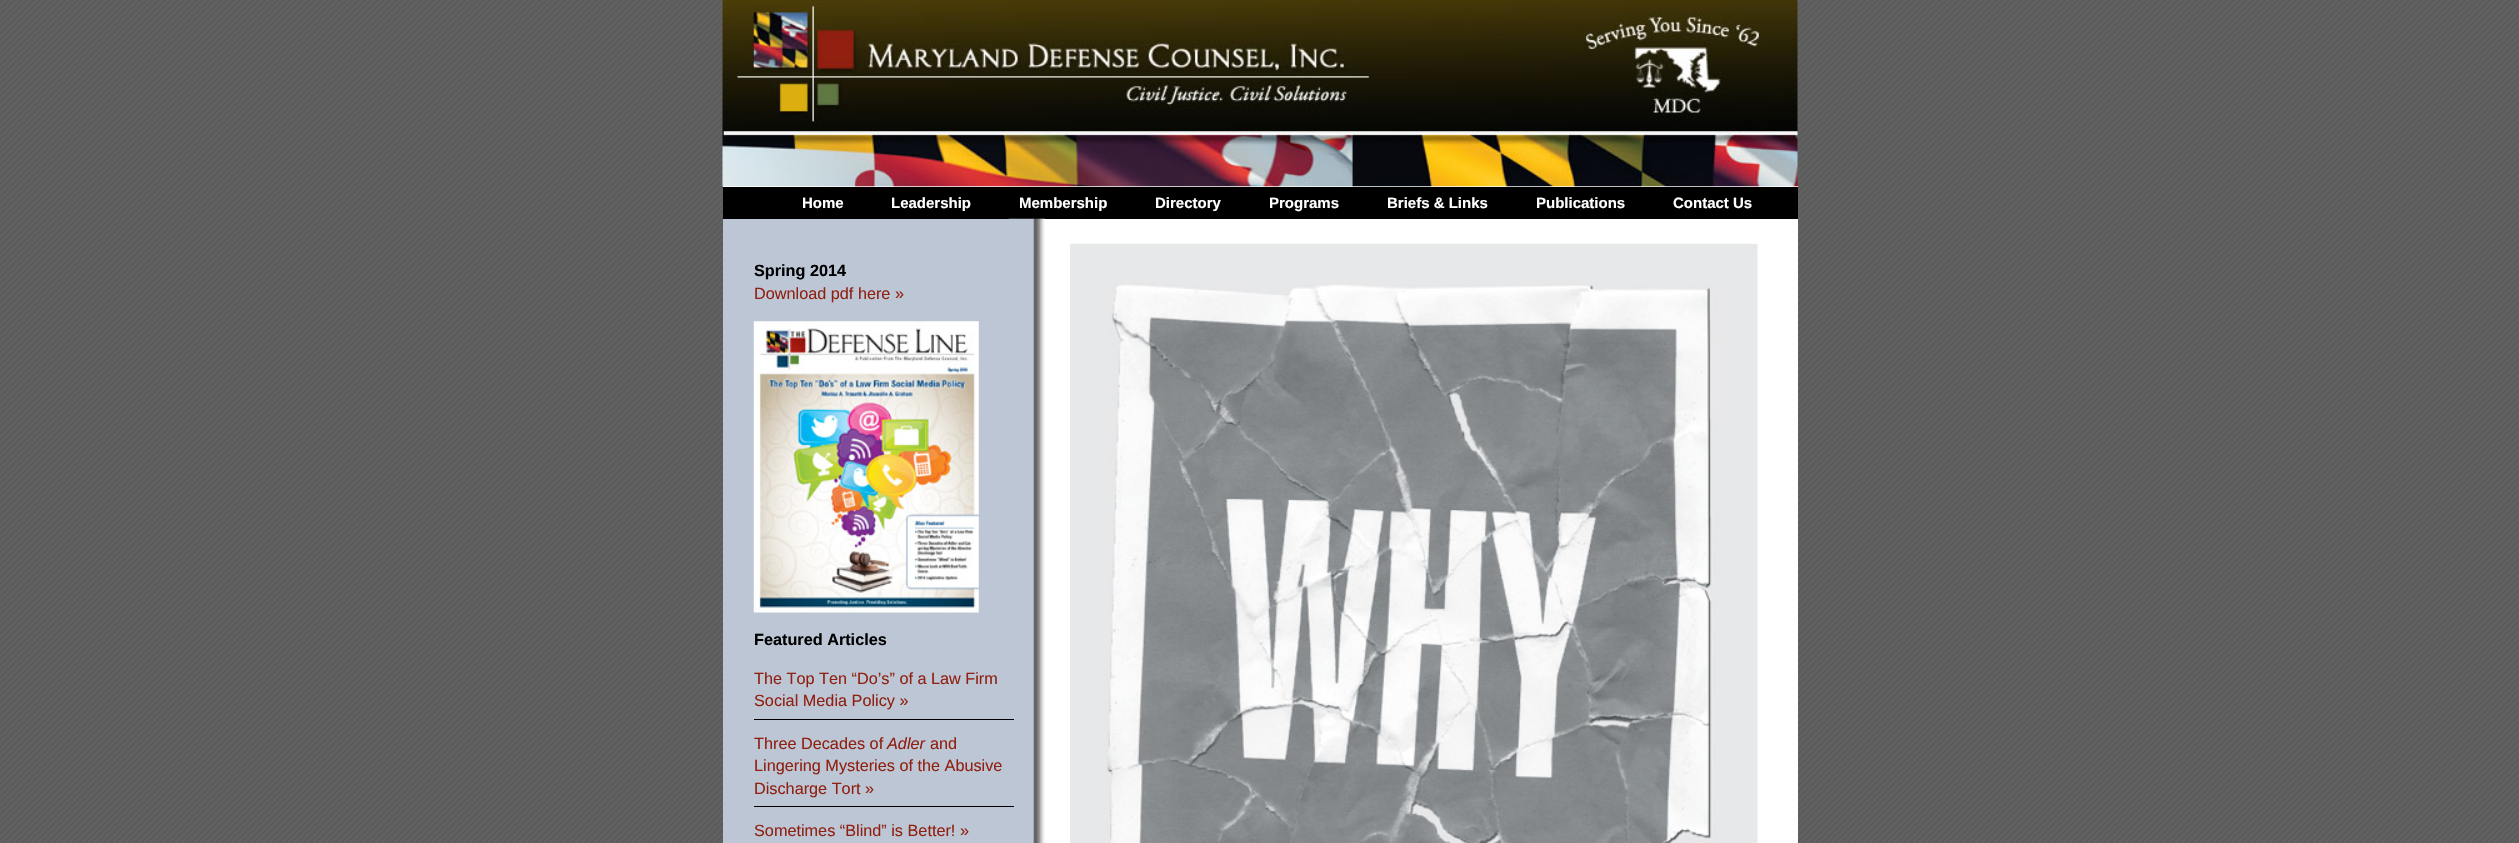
#include "include/core/SkBlurTypes.h"
#include "include/core/SkCanvas.h"
#include "include/core/SkData.h"
#include "include/core/SkFont.h"
#include "include/core/SkFontMgr.h"
#include "include/core/SkImage.h"
#include "include/core/SkMaskFilter.h"
#include "include/core/SkPaint.h"
#include "include/core/SkPathBuilder.h"
#include "include/core/SkTextBlob.h"
#include "include/effects/SkDashPathEffect.h"
#include "include/effects/SkGradientShader.h"
#include "include/utils/SkParsePath.h"

extern sk_sp<SkFontMgr> fontMgr;

void draw(SkCanvas* canvas) {
    SkPaint p;
    p.setAntiAlias(true);
    auto font = [&](const char* family, int weight, float size, bool italic = false) {
        SkFontStyle style(weight, SkFontStyle::kNormal_Width,
            italic ? SkFontStyle::kItalic_Slant : SkFontStyle::kUpright_Slant);
        SkFont result(fontMgr->matchFamilyStyle(family, style), size);
        result.setSubpixel(true);
        return result;
    };
    auto drawPhoto = [&](const char* path, float l, float t, float r, float b) {
        auto image = SkImages::DeferredFromEncodedData(SkData::MakeFromFileName(path));
        canvas->drawImageRect(image, SkRect::MakeLTRB(l, t, r, b), SkSamplingOptions());
    };
    canvas->clear(0xFFFFFFFF);
    drawPhoto("media/1.png", 0, 0, 2519, 843);
    drawPhoto("media/2.png", 722, 0, 1798, 132);
    p.setColor(0xFFFFFFFF);
    canvas->drawRect(SkRect::MakeLTRB(723, 186, 1798, 187), p);
    drawPhoto("media/3.png", 722, 131, 1798, 187);
    p.setColor(0xFF000000);
    canvas->drawRect(SkRect::MakeLTRB(723, 187, 1798, 219), p);
    auto font1 = font("Liberation Sans", 700, 15);
    p.setColor(0xFFFFFFFF);
    {
        const struct { const char* s; float x, y; } items[] = {
            {"Home", 802, 208},
            {"Leadership", 891, 208},
            {"Membership", 1019, 208},
            {"Directory", 1155, 208},
            {"Programs", 1269, 208},
            {"Briefs & Links", 1387, 208},
            {"Publications", 1536, 208},
            {"Contact Us", 1673, 208},
        };
        for (auto [s, x, y] : items) {
            canvas->drawString(s, x, y, font1, p);
        }
    }
    p.setColor(0xFFBCC6D5);
    canvas->drawRect(SkRect::MakeLTRB(723, 219, 1009, 843), p);
    drawPhoto("media/4.png", 1008, 218, 1045, 843);
    auto font2 = font("Liberation Sans", 700, 16.25f);
    p.setColor(0xFF000000);
    canvas->drawString("Spring 2014", 754, 276, font2, p);
    auto font3 = font("Liberation Sans", 400, 16.25f);
    p.setColor(0xFF902010);
    canvas->drawString("Download pdf here »", 754, 299, font3, p);
    drawPhoto("media/5.png", 753, 321, 979, 613);
    p.setColor(0xFF000000);
    canvas->drawString("Featured Articles", 754, 645, font2, p);
    canvas->drawRect(SkRect::MakeLTRB(754, 719, 1014, 720), p);
    p.setColor(0xFF902010);
    canvas->drawString("The Top Ten “Do’s” of a Law Firm", 754, 684, font3, p);
    canvas->drawString("Social Media Policy »", 754, 706, font3, p);
    p.setColor(0xFF000000);
    canvas->drawRect(SkRect::MakeLTRB(754, 806, 1014, 807), p);
    p.setColor(0xFF902010);
    canvas->drawString("Three Decades of", 754, 749, font3, p);
    auto font4 = font("Liberation Sans", 400, 16.25f, true);
    canvas->drawString("Adler", 887, 749, font4, p);
    {
        const struct { const char* s; float x, y; } items[] = {
            {"and", 930, 749},
            {"Lingering Mysteries of the Abusive", 754, 771},
            {"Discharge Tort »", 754, 794},
            {"Sometimes “Blind” is Better! »", 754, 836},
        };
        for (auto [s, x, y] : items) {
            canvas->drawString(s, x, y, font3, p);
        }
    }
    p.setColor(0xFFFFFFFF);
    canvas->drawRect(SkRect::MakeLTRB(1045, 219, 1798, 843), p);
    drawPhoto("media/6.png", 1070, 243, 1758, 843);
}
